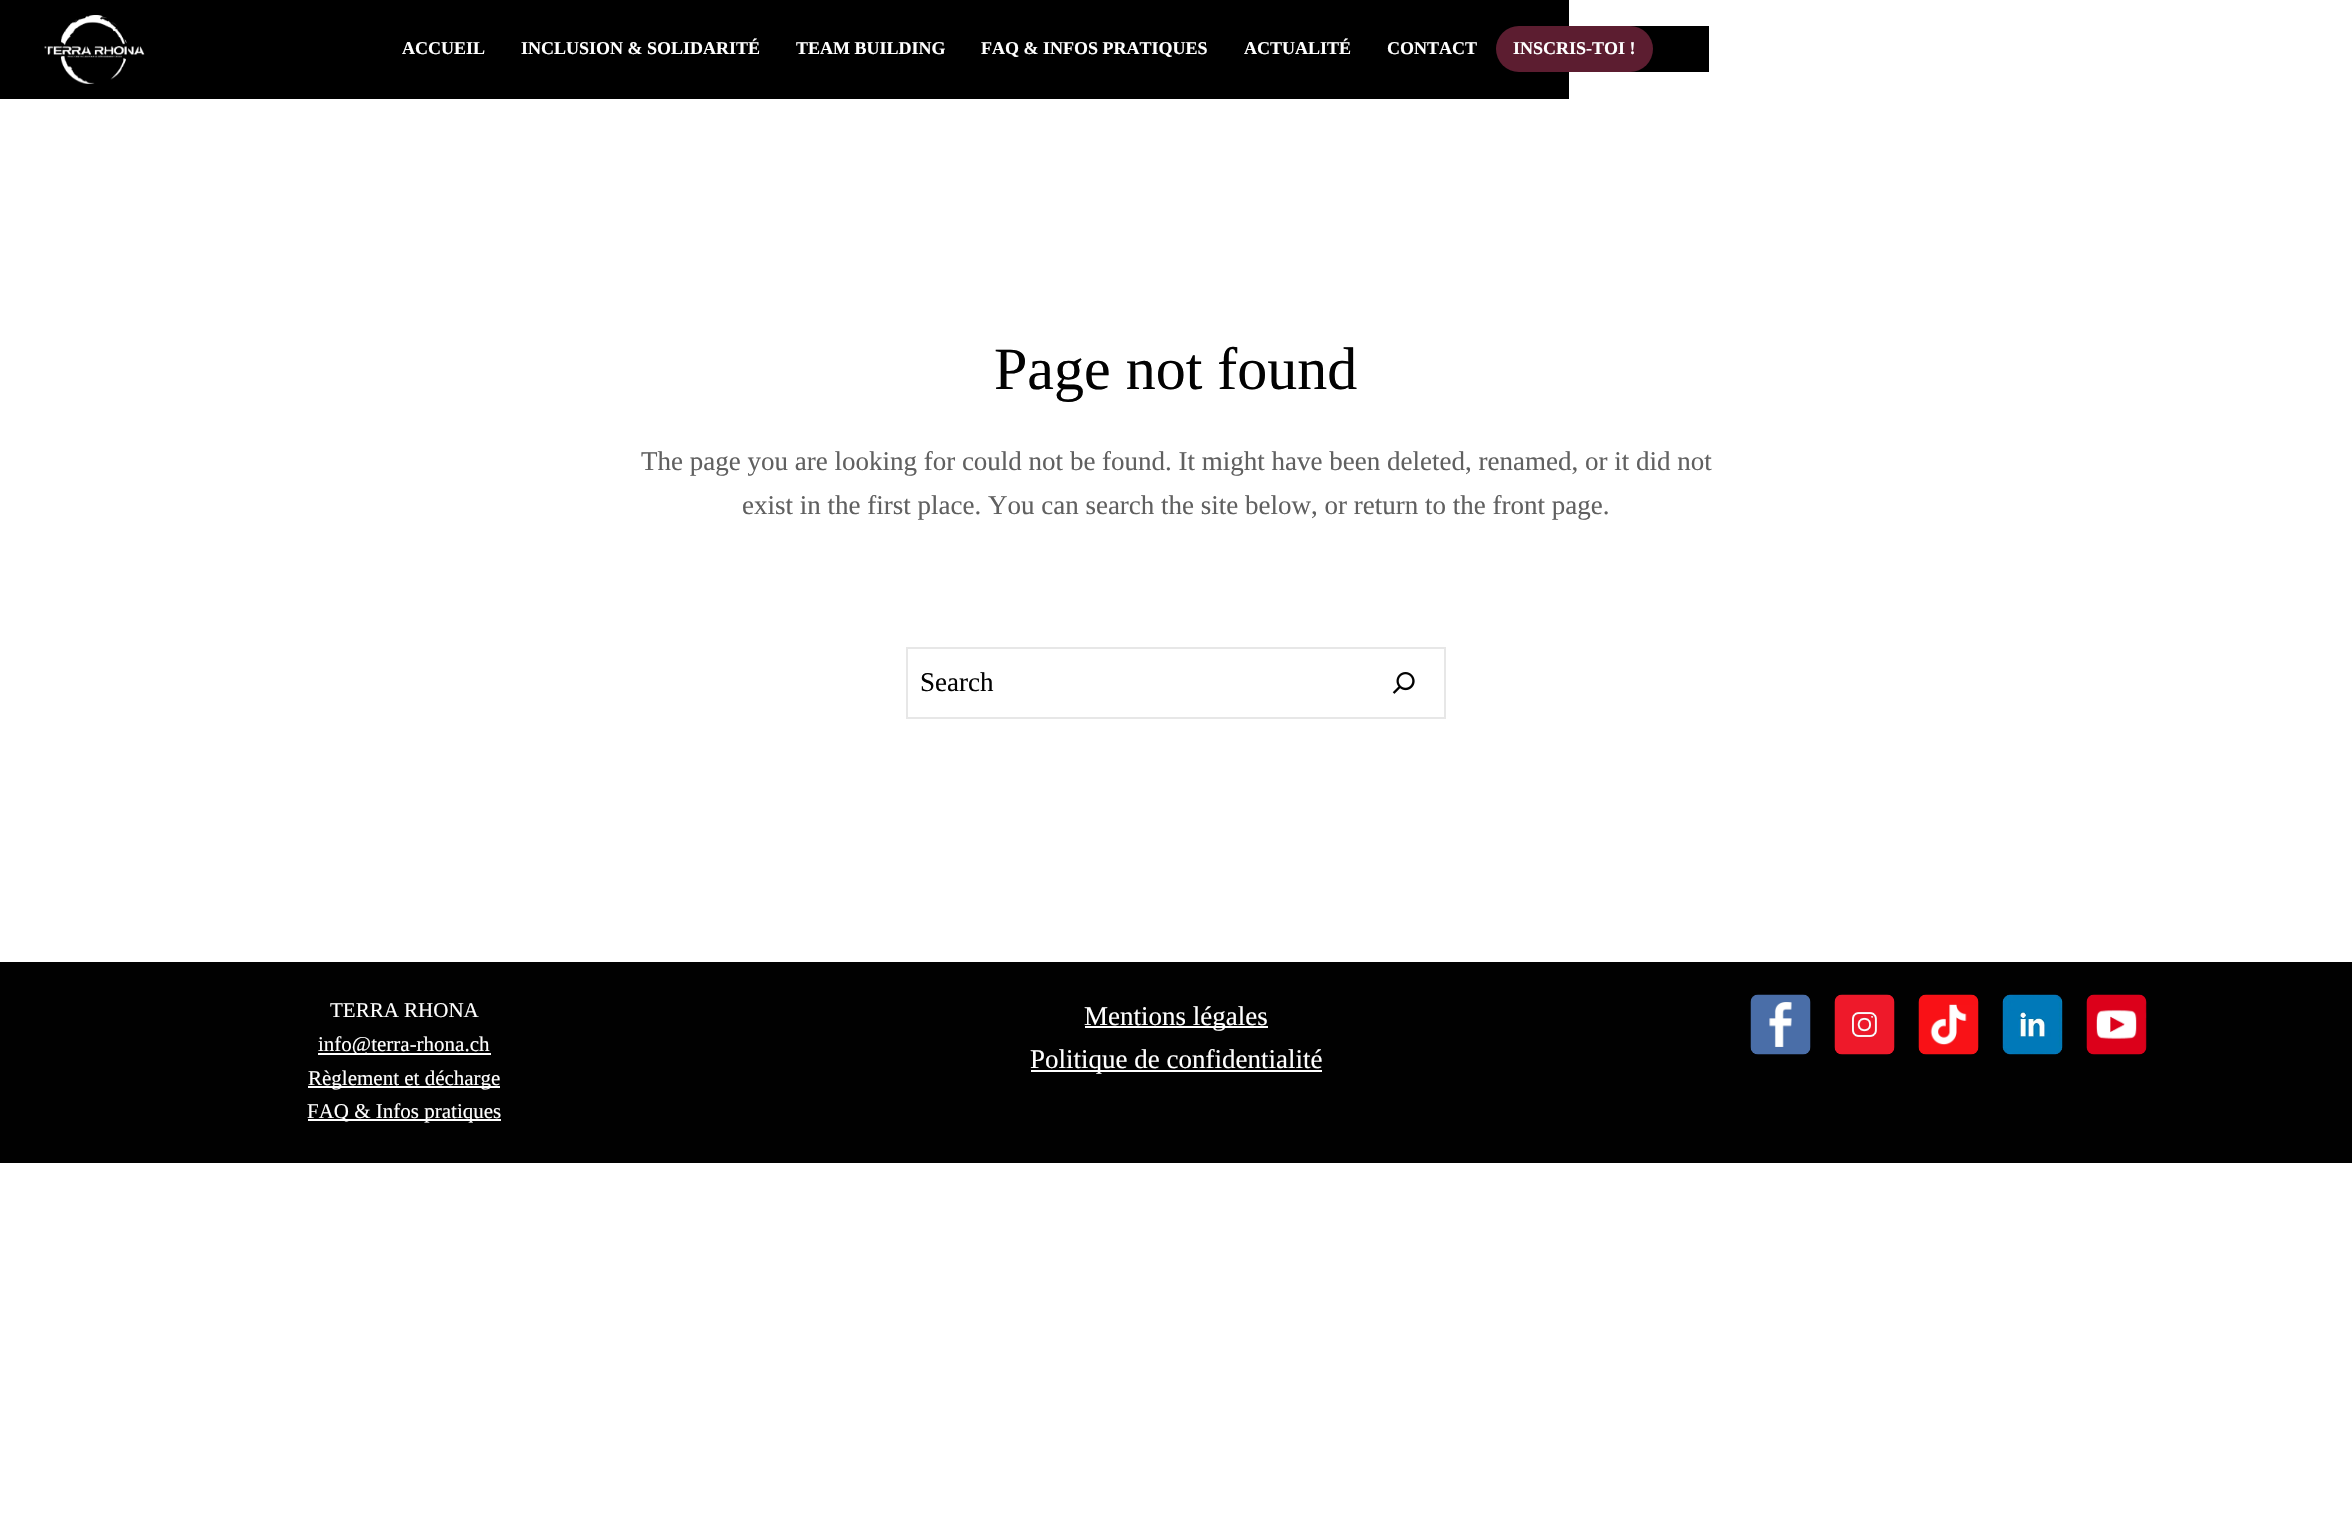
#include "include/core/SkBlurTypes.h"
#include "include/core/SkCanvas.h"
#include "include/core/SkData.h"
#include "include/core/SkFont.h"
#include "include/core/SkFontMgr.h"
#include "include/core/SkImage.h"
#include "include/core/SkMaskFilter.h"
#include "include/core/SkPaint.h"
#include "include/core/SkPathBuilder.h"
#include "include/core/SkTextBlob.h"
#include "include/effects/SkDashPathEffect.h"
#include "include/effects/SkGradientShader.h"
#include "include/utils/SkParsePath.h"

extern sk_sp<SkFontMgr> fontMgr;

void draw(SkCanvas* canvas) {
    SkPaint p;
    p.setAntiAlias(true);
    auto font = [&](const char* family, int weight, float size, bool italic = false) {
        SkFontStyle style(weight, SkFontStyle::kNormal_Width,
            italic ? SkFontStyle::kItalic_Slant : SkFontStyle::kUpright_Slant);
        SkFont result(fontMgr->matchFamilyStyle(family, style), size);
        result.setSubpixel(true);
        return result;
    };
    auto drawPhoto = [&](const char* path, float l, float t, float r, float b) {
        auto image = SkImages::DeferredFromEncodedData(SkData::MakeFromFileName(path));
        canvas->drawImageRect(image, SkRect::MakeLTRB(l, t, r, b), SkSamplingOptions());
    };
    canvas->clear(0xFFFFFFFF);
    p.setColor(0xFF000000);
    canvas->drawRect(SkRect::MakeLTRB(0, 0, 1569, 99), p);
    drawPhoto("media/1.png", 44, 15, 145, 84);
    canvas->drawRect(SkRect::MakeLTRB(1569, 26, 1709, 72), p);
    auto font1 = font("Liberation Serif", 700, 18);
    p.setColor(0xFFFFFFFF);
    {
        const struct { const char* s; float x, y; } items[] = {
            {"ACCUEIL", 402, 54},
            {"INCLUSION & SOLIDARITÉ", 521, 54},
            {"TEAM BUILDING", 796, 54},
            {"FAQ & INFOS PRATIQUES", 981, 54},
            {"ACTUALITÉ", 1244, 54},
            {"CONTACT", 1387, 54},
        };
        for (auto [s, x, y] : items) {
            canvas->drawString(s, x, y, font1, p);
        }
    }
    p.setColor(0xFF5C1D30);
    canvas->drawRoundRect(SkRect::MakeLTRB(1496, 26, 1653, 72), 23, 23, p);
    p.setColor(0xFFFFFFFF);
    canvas->drawString("INSCRIS-TOI !", 1513, 54, font1, p);
    auto font2 = font("Liberation Serif", 400, 60);
    p.setColor(0xFF020202);
    canvas->drawString("Page not found", 994, 389, font2, p);
    auto font3 = font("Liberation Serif", 400, 27);
    p.setColor(0xFF606060);
    canvas->drawString("The page you are looking for could not be found. It might have been deleted, renamed, or it did not", 641, 470, font3, p);
    canvas->drawString("exist in the first place. You can search the site below, or return to the front page.", 742, 514, font3, p);
    p.setStyle(SkPaint::kStroke_Style);
    p.setStrokeWidth(2);
    p.setColor(0xFFE7E7E7);
    canvas->drawRect(SkRect::MakeLTRB(907, 648, 1445, 718), p);
    p.setStyle(SkPaint::kFill_Style);
    p.setColor(0xFF020202);
    canvas->drawString("Search", 920, 691, font3, p);
    drawPhoto("media/2.png", 1392, 672, 1415, 694);
    p.setColor(0xFF010101);
    canvas->drawRect(SkRect::MakeLTRB(0, 962, 2352, 1163), p);
    auto font4 = font("Liberation Serif", 400, 21);
    p.setColor(0xFFFFFFFF);
    canvas->drawString("TERRA RHONA", 330, 1017, font4, p);
    canvas->drawRect(SkRect::MakeLTRB(318, 1053, 491, 1055), p);
    canvas->drawString("info@terra-rhona.ch", 318, 1051, font4, p);
    canvas->drawRect(SkRect::MakeLTRB(308, 1086, 500, 1088), p);
    canvas->drawString("Règlement et décharge", 308, 1085, font4, p);
    canvas->drawRect(SkRect::MakeLTRB(308, 1119, 501, 1121), p);
    canvas->drawString("FAQ & Infos pratiques", 307, 1118, font4, p);
    canvas->drawRect(SkRect::MakeLTRB(1085, 1026, 1268, 1028), p);
    canvas->drawString("Mentions légales", 1084, 1025, font3, p);
    canvas->drawRect(SkRect::MakeLTRB(1031, 1070, 1322, 1072), p);
    canvas->drawString("Politique de confidentialité", 1030, 1068, font3, p);
    drawPhoto("media/3.png", 1750, 994, 1811, 1055);
    drawPhoto("media/4.png", 1834, 994, 1895, 1055);
    drawPhoto("media/5.png", 1918, 994, 1979, 1055);
    drawPhoto("media/6.png", 2002, 994, 2063, 1055);
    drawPhoto("media/7.png", 2086, 994, 2147, 1055);
}
